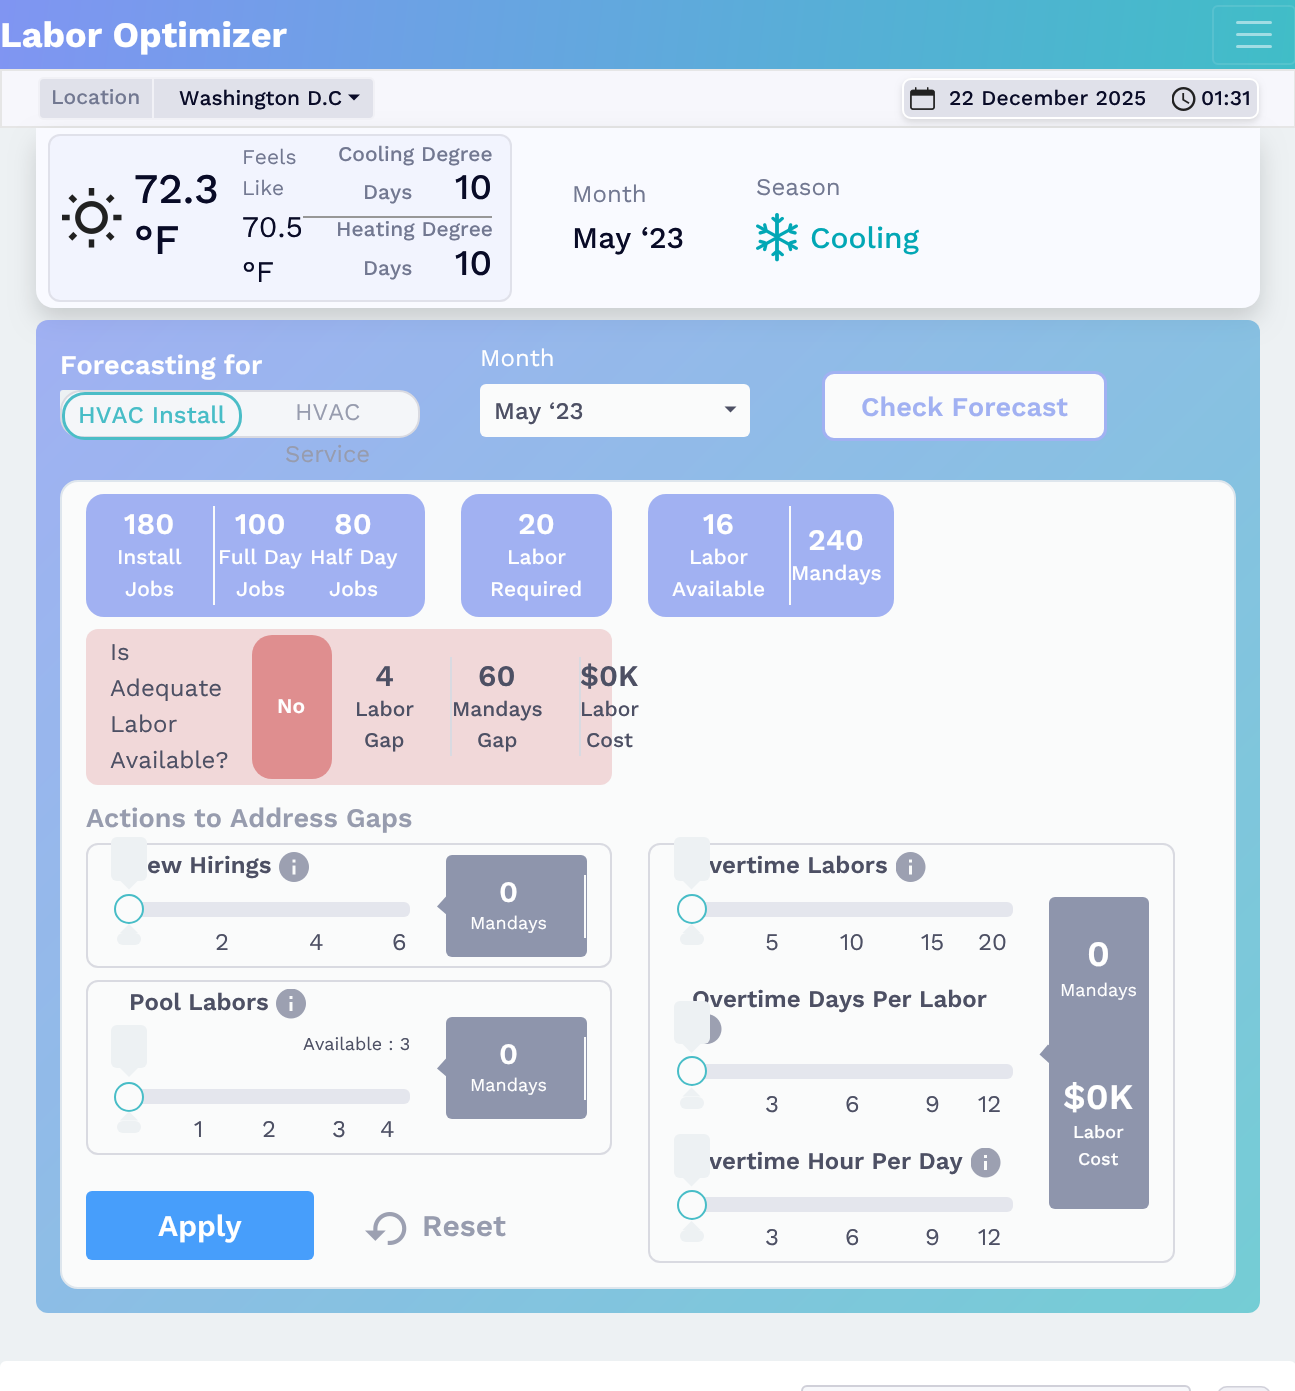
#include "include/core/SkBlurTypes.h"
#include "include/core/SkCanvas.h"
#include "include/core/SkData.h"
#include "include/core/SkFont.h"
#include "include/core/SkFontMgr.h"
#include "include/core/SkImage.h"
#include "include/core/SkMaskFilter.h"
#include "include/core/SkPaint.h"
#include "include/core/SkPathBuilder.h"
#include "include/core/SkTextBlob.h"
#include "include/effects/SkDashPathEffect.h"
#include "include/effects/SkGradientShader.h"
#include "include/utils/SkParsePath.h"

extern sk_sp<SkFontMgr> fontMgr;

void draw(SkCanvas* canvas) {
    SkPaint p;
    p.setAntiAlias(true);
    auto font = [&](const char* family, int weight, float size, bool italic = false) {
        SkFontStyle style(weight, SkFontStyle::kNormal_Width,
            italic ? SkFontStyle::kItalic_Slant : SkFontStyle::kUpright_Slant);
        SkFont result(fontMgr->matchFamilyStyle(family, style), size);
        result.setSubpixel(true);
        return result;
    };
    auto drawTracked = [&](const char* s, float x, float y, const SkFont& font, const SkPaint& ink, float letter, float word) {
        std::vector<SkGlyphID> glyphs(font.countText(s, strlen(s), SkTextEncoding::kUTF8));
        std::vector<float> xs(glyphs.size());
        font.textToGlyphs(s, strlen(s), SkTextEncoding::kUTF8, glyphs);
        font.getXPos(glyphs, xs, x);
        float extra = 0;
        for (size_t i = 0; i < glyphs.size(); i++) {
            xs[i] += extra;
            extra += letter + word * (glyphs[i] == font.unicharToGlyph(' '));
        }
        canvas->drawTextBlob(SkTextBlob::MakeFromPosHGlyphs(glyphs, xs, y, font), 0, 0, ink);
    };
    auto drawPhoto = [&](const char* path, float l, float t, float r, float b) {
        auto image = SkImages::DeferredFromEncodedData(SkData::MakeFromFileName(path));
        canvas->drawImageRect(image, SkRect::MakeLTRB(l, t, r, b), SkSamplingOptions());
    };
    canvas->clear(0xFFEDF1F3);
    {
        const SkColor colors[] = {0xFF8095F2, 0xFF40BDC7};
        const float stops[] = {0, 1};
        const SkPoint ends[] = {{5.5f, -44}, {1291, 113}};
        p.setShader(SkGradientShader::MakeLinear(ends, colors, stops, 2, SkTileMode::kClamp));
        p.setAlpha(255);
    }
    canvas->drawRect(SkRect::MakeLTRB(0, 0, 1295, 69), p);
    auto font1 = font("Work Sans", 700, 36);
    p.setShader(nullptr);
    p.setColor(0xFFFFFFFF);
    canvas->drawString("Labor Optimizer", 0, 47, font1, p);
    p.setStyle(SkPaint::kStroke_Style);
    p.setStrokeWidth(2);
    p.setColor(0x1AFFFFFF);
    canvas->drawRoundRect(SkRect::MakeLTRB(1213, 6, 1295, 64), 5, 5, p);
    p.setStrokeWidth(3);
    p.setStrokeCap(SkPaint::kRound_Cap);
    p.setColor(0xFFA1DDE4);
    canvas->drawPath(SkPathBuilder().moveTo(1237.5f, 22.5f).lineTo(1270.5f, 22.5f).moveTo(1237.5f, 34.5f).lineTo(1270.5f, 34.5f).moveTo(1237.5f, 46.5f).lineTo(1270.5f, 46.5f).detach(), p);
    p.setStyle(SkPaint::kFill_Style);
    p.setColor(0xFFF7F7FC);
    canvas->drawRect(SkRect::MakeLTRB(1, 70, 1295, 127), p);
    p.setStyle(SkPaint::kStroke_Style);
    p.setStrokeWidth(2);
    p.setStrokeCap(SkPaint::kButt_Cap);
    p.setColor(0xFFE6E6E6);
    canvas->drawRect(SkRect::MakeLTRB(1, 70, 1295, 127), p);
    p.setStyle(SkPaint::kFill_Style);
    p.setColor(0x26000000);
    p.setMaskFilter(SkMaskFilter::MakeBlur(kNormal_SkBlurStyle, 12));
    canvas->drawRoundRect(SkRect::MakeLTRB(36, 140, 1260, 320), 18, 18, p);
    p.setMaskFilter(nullptr);
    p.setColor(0xFFE0E1EA);
    canvas->drawRoundRect(SkRect::MakeLTRB(39, 78, 374, 119), 5, 5, p);
    p.setStyle(SkPaint::kStroke_Style);
    p.setColor(0xFFF1F1F6);
    canvas->drawRoundRect(SkRect::MakeLTRB(39, 78, 374, 119), 5, 5, p);
    p.setStyle(SkPaint::kFill_Style);
    canvas->drawRect(SkRect::MakeLTRB(152, 78, 154, 119), p);
    auto font2 = font("Work Sans", 500, 21);
    p.setColor(0xFF727891);
    canvas->drawString("Location", 51, 104, font2, p);
    p.setColor(0xFF090B27);
    canvas->drawString("Washington D.C", 179, 105, font2, p);
    canvas->drawPath(SkPathBuilder().moveTo(348, 94.5f).lineTo(360, 94.5f).lineTo(354, 100.5f).close().detach(), p);
    p.setColor(0xFFF9FAFF);
    canvas->drawPath(SkPathBuilder().moveTo(36, 128).lineTo(1260, 128).lineTo(1260, 290).cubicTo(1260, 300, 1252, 308, 1242, 308).lineTo(54, 308).cubicTo(44, 308, 36, 300, 36, 290).close().detach(), p);
    p.setColor(0x1F000000);
    p.setMaskFilter(SkMaskFilter::MakeBlur(kNormal_SkBlurStyle, 3));
    canvas->drawRoundRect(SkRect::MakeLTRB(902, 81, 1259, 122), 9, 9, p);
    p.setMaskFilter(nullptr);
    p.setColor(0xFFE0E1EA);
    canvas->drawRoundRect(SkRect::MakeLTRB(903, 79, 1258, 118), 8, 8, p);
    p.setStyle(SkPaint::kStroke_Style);
    p.setColor(0xFFFFFFFF);
    canvas->drawRoundRect(SkRect::MakeLTRB(903, 79, 1258, 118), 8, 8, p);
    drawPhoto("media/1.png", 910, 87, 935, 110);
    p.setStyle(SkPaint::kFill_Style);
    p.setColor(0xFF090B27);
    drawTracked("22 December 2025", 949, 105, font2, p, 0.25f, 0);
    drawPhoto("media/2.png", 1172, 87, 1196, 111);
    drawTracked("01:31", 1201, 105, font2, p, 0.25f, 0);
    p.setColor(0xFFF2F4FE);
    canvas->drawRoundRect(SkRect::MakeLTRB(49, 135, 511, 301), 11, 11, p);
    p.setStyle(SkPaint::kStroke_Style);
    p.setColor(0xFFE0E1EA);
    canvas->drawRoundRect(SkRect::MakeLTRB(49, 135, 511, 301), 11, 11, p);
    drawPhoto("media/3.png", 62, 188, 122, 248);
    auto font3 = font("Work Sans", 500, 42);
    p.setStyle(SkPaint::kFill_Style);
    p.setColor(0xFF090B27);
    canvas->drawString("72.3", 134, 203, font3, p);
    canvas->drawString("°F", 134, 254, font3, p);
    auto font4 = font("Work Sans", 400, 21);
    p.setColor(0xFF727891);
    canvas->drawString("Feels", 242, 164, font4, p);
    canvas->drawString("Like", 242, 195, font4, p);
    auto font5 = font("Work Sans", 400, 30);
    p.setColor(0xFF090B27);
    canvas->drawString("70.5", 242, 237, font5, p);
    canvas->drawString("°F", 242, 282, font5, p);
    p.setColor(0xFF979797);
    canvas->drawRect(SkRect::MakeLTRB(303, 216, 492, 218), p);
    p.setColor(0xFF727891);
    canvas->drawString("Cooling Degree", 338, 161, font2, p);
    canvas->drawString("Days", 363, 199, font2, p);
    auto font6 = font("Work Sans", 500, 36);
    p.setColor(0xFF090B27);
    canvas->drawString("10", 455, 199, font6, p);
    p.setColor(0xFF727891);
    canvas->drawString("Heating Degree", 336, 236, font2, p);
    canvas->drawString("Days", 363, 275, font2, p);
    p.setColor(0xFF090B27);
    canvas->drawString("10", 455, 275, font6, p);
    auto font7 = font("Work Sans", 400, 24);
    p.setColor(0xFF727891);
    canvas->drawString("Month", 572, 202, font7, p);
    auto font8 = font("Work Sans", 500, 30);
    p.setColor(0xFF090B27);
    canvas->drawString("May ‘23", 572, 248, font8, p);
    p.setColor(0xFF727891);
    canvas->drawString("Season", 756, 195, font7, p);
    drawPhoto("media/4.png", 756, 213, 798, 262);
    p.setColor(0xFF02A7B5);
    canvas->drawString("Cooling", 810, 248, font8, p);
    {
        const SkColor colors[] = {0xB38095F2, 0xB340BDC7};
        const float stops[] = {0, 1};
        const SkPoint ends[] = {{92, 263}, {1204, 1369}};
        p.setShader(SkGradientShader::MakeLinear(ends, colors, stops, 2, SkTileMode::kClamp));
        p.setAlpha(255);
    }
    canvas->drawRoundRect(SkRect::MakeLTRB(36, 320, 1260, 1313), 12, 12, p);
    auto font9 = font("Work Sans", 600, 27);
    p.setShader(nullptr);
    p.setColor(0xFFFFFFFF);
    canvas->drawString("Forecasting for", 60, 374, font9, p);
    p.setColor(0xFFEDF1F3);
    canvas->drawRoundRect(SkRect::MakeLTRB(60, 390, 80, 410), 3, 3, p);
    p.setColor(0xFFF4F6F9);
    canvas->drawRoundRect(SkRect::MakeLTRB(61, 391, 419, 437), 20, 20, p);
    p.setStyle(SkPaint::kStroke_Style);
    p.setColor(0xFFD9DAE1);
    canvas->drawRoundRect(SkRect::MakeLTRB(61, 391, 419, 437), 20, 20, p);
    p.setStrokeWidth(3);
    p.setColor(0xFF4BBDC7);
    canvas->drawRoundRect(SkRect::MakeLTRB(63.5f, 393.5f, 240.5f, 438.5f), 21.5f, 21.5f, p);
    auto font10 = font("Work Sans", 500, 24);
    p.setStyle(SkPaint::kFill_Style);
    p.setColor(0xFF47BDC7);
    canvas->drawString("HVAC Install", 78, 423, font10, p);
    p.setColor(0xFF979CAE);
    canvas->drawString("HVAC", 295, 420, font7, p);
    canvas->drawString("Service", 285, 462, font7, p);
    p.setColor(0xFFFFFFFF);
    canvas->drawString("Month", 480, 366, font7, p);
    p.setColor(0xFFFAFBFB);
    canvas->drawRoundRect(SkRect::MakeLTRB(480, 384, 750, 437), 6, 6, p);
    p.setColor(0xFF4D5064);
    canvas->drawString("May ‘23", 494, 419, font10, p);
    canvas->drawPath(SkPathBuilder().moveTo(724.5f, 406.5f).lineTo(736.5f, 406.5f).lineTo(730.5f, 412.5f).close().detach(), p);
    p.setColor(0xFFFAFBFB);
    canvas->drawRoundRect(SkRect::MakeLTRB(823.5f, 372.5f, 1105.5f, 439.5f), 10.5f, 10.5f, p);
    p.setStyle(SkPaint::kStroke_Style);
    p.setColor(0xFFA1B1F2);
    canvas->drawRoundRect(SkRect::MakeLTRB(823.5f, 372.5f, 1105.5f, 439.5f), 10.5f, 10.5f, p);
    p.setStyle(SkPaint::kFill_Style);
    canvas->drawString("Check Forecast", 861, 416, font9, p);
    p.setColor(0xFFFAFBFB);
    canvas->drawRoundRect(SkRect::MakeLTRB(61, 481, 1235, 1288), 17, 17, p);
    p.setStyle(SkPaint::kStroke_Style);
    p.setStrokeWidth(2);
    p.setColor(0xFFDEE6ED);
    canvas->drawRoundRect(SkRect::MakeLTRB(61, 481, 1235, 1288), 17, 17, p);
    p.setStyle(SkPaint::kFill_Style);
    p.setColor(0xFFA1B1F2);
    canvas->drawRoundRect(SkRect::MakeLTRB(86, 494, 425, 617), 18, 18, p);
    p.setColor(0xFFFAFBFB);
    canvas->drawRect(SkRect::MakeLTRB(213, 506, 215, 605), p);
    auto font11 = font("Work Sans", 600, 30);
    p.setColor(0xFFFFFFFF);
    canvas->drawString("180", 124, 534, font11, p);
    canvas->drawString("Install", 117, 564, font2, p);
    canvas->drawString("Jobs", 125, 596, font2, p);
    canvas->drawString("100", 235, 534, font11, p);
    canvas->drawString("Full Day", 218, 564, font2, p);
    canvas->drawString("Jobs", 236, 596, font2, p);
    canvas->drawString("80", 334, 534, font11, p);
    canvas->drawString("Half Day", 310, 564, font2, p);
    canvas->drawString("Jobs", 329, 596, font2, p);
    p.setColor(0xFFA1B1F2);
    canvas->drawRoundRect(SkRect::MakeLTRB(461, 494, 612, 617), 18, 18, p);
    p.setColor(0xFFFFFFFF);
    canvas->drawString("20", 518, 534, font11, p);
    canvas->drawString("Labor", 507, 564, font2, p);
    canvas->drawString("Required", 490, 596, font2, p);
    p.setColor(0xFFA1B1F2);
    canvas->drawRoundRect(SkRect::MakeLTRB(648, 494, 894, 617), 18, 18, p);
    p.setColor(0xFFFAFBFB);
    canvas->drawRect(SkRect::MakeLTRB(789, 506, 791, 605), p);
    p.setColor(0xFFFFFFFF);
    canvas->drawString("16", 703, 534, font11, p);
    canvas->drawString("Labor", 689, 564, font2, p);
    canvas->drawString("Available", 672, 596, font2, p);
    canvas->drawString("240", 808, 550, font11, p);
    canvas->drawString("Mandays", 791, 580, font2, p);
    p.setColor(0xFFF1D8D9);
    canvas->drawRoundRect(SkRect::MakeLTRB(86, 629, 612, 785), 12, 12, p);
    p.setColor(0xFF4D5064);
    {
        const struct { const char* s; float x, y; } items[] = {
            {"Is", 110, 660},
            {"Adequate", 110, 696},
            {"Labor", 110, 732},
            {"Available?", 110, 768},
        };
        for (auto [s, x, y] : items) {
            canvas->drawString(s, x, y, font7, p);
        }
    }
    p.setColor(0xFFDF8E8F);
    canvas->drawRoundRect(SkRect::MakeLTRB(252, 635, 332, 779), 20, 20, p);
    auto font12 = font("Work Sans", 600, 21);
    p.setColor(0xFFFFFFFF);
    canvas->drawString("No", 277, 713, font12, p);
    p.setColor(0xFFD9DAE1);
    canvas->drawRect(SkRect::MakeLTRB(450, 657, 452, 756), p);
    p.setColor(0xFF4D5064);
    canvas->drawString("4", 375, 686, font11, p);
    canvas->drawString("Labor", 355, 716, font2, p);
    canvas->drawString("Gap", 364, 747, font2, p);
    p.setColor(0xFFD9DAE1);
    canvas->drawRect(SkRect::MakeLTRB(579, 657, 581, 756), p);
    p.setColor(0xFF4D5064);
    canvas->drawString("60", 478, 686, font11, p);
    canvas->drawString("Mandays", 452, 716, font2, p);
    canvas->drawString("Gap", 477, 747, font2, p);
    canvas->drawString("$0K", 580, 686, font11, p);
    canvas->drawString("Labor", 580, 716, font2, p);
    canvas->drawString("Cost", 586, 747, font2, p);
    p.setColor(0xFF979CAE);
    canvas->drawString("Actions to Address Gaps", 86, 827, font9, p);
    p.setStyle(SkPaint::kStroke_Style);
    p.setColor(0xFFD9DAE1);
    canvas->drawRoundRect(SkRect::MakeLTRB(87, 844, 611, 967), 11, 11, p);
    auto font13 = font("Work Sans", 600, 24);
    p.setStyle(SkPaint::kFill_Style);
    p.setColor(0xFF4D5064);
    canvas->drawString("ew Hirings", 147, 873, font13, p);
    drawPhoto("media/5.png", 279, 852, 309, 882);
    p.setColor(0xFFEDF1F3);
    canvas->drawPath(SkPathBuilder().moveTo(120, 880.5f).lineTo(138, 880.5f).lineTo(129, 889.5f).close().detach(), p);
    canvas->drawRoundRect(SkRect::MakeLTRB(111, 837, 147, 881), 6, 6, p);
    p.setColor(0xFFE4E6ED);
    canvas->drawRoundRect(SkRect::MakeLTRB(129, 902, 410, 917), 6, 6, p);
    p.setColor(0xFFFAFBFB);
    canvas->drawCircle(129, 909, 14, p);
    p.setStyle(SkPaint::kStroke_Style);
    p.setColor(0xFF47BDC7);
    canvas->drawCircle(129, 909, 14, p);
    p.setStyle(SkPaint::kFill_Style);
    p.setColor(0xFFEDF1F3);
    canvas->drawPath(SkPathBuilder().moveTo(138, 933).lineTo(120, 933).lineTo(129, 924).close().detach(), p);
    canvas->drawRoundRect(SkRect::MakeLTRB(117, 933, 141, 945), 6, 6, p);
    p.setColor(0xFF4D5064);
    {
        const struct { const char* s; float x, y; } items[] = {
            {"2", 215, 950},
            {"4", 309, 950},
            {"6", 392, 950},
        };
        for (auto [s, x, y] : items) {
            canvas->drawString(s, x, y, font7, p);
        }
    }
    p.setColor(0xFF8E95AC);
    canvas->drawRoundRect(SkRect::MakeLTRB(446, 855, 587, 957), 6, 6, p);
    canvas->drawPath(SkPathBuilder().moveTo(437, 906.5f).lineTo(446, 896.5f).lineTo(456.5f, 905.5f).lineTo(447.5f, 915.5f).close().detach(), p);
    p.setColor(0xFFFAFBFB);
    canvas->drawRect(SkRect::MakeLTRB(584, 875, 586, 938), p);
    p.setColor(0xFFFFFFFF);
    canvas->drawString("0", 499, 902, font11, p);
    auto font14 = font("Work Sans", 400, 18);
    canvas->drawString("Mandays", 470, 929, font14, p);
    p.setStyle(SkPaint::kStroke_Style);
    p.setColor(0xFFD9DAE1);
    canvas->drawRoundRect(SkRect::MakeLTRB(87, 981, 611, 1154), 11, 11, p);
    p.setStyle(SkPaint::kFill_Style);
    p.setColor(0xFF4D5064);
    canvas->drawString("Pool Labors", 129, 1010, font13, p);
    drawPhoto("media/6.png", 276, 989, 306, 1019);
    canvas->drawString("Available : 3", 303, 1050, font14, p);
    p.setColor(0xFFEDF1F3);
    canvas->drawRoundRect(SkRect::MakeLTRB(111, 1025, 147, 1068), 6, 6, p);
    canvas->drawPath(SkPathBuilder().moveTo(120, 1068).lineTo(138, 1068).lineTo(129, 1077).close().detach(), p);
    p.setColor(0xFFE4E6ED);
    canvas->drawRoundRect(SkRect::MakeLTRB(129, 1089, 410, 1104), 6, 6, p);
    p.setColor(0xFFFAFBFB);
    canvas->drawCircle(129, 1097, 14, p);
    p.setStyle(SkPaint::kStroke_Style);
    p.setColor(0xFF47BDC7);
    canvas->drawCircle(129, 1097, 14, p);
    p.setStyle(SkPaint::kFill_Style);
    p.setColor(0xFFEDF1F3);
    canvas->drawPath(SkPathBuilder().moveTo(138, 1120.5f).lineTo(120, 1120.5f).lineTo(129, 1111.5f).close().detach(), p);
    canvas->drawRoundRect(SkRect::MakeLTRB(117, 1121, 141, 1133), 6, 6, p);
    p.setColor(0xFF4D5064);
    {
        const struct { const char* s; float x, y; } items[] = {
            {"1", 194, 1137},
            {"2", 262, 1137},
            {"3", 332, 1137},
            {"4", 380, 1137},
        };
        for (auto [s, x, y] : items) {
            canvas->drawString(s, x, y, font7, p);
        }
    }
    p.setColor(0xFF8E95AC);
    canvas->drawRoundRect(SkRect::MakeLTRB(446, 1017, 587, 1119), 6, 6, p);
    canvas->drawPath(SkPathBuilder().moveTo(437, 1068.5f).lineTo(446, 1058.5f).lineTo(456.5f, 1067.5f).lineTo(447.5f, 1077.5f).close().detach(), p);
    p.setColor(0xFFFAFBFB);
    canvas->drawRect(SkRect::MakeLTRB(584, 1037, 586, 1100), p);
    p.setColor(0xFFFFFFFF);
    canvas->drawString("0", 499, 1064, font11, p);
    canvas->drawString("Mandays", 470, 1091, font14, p);
    p.setColor(0xFF479EFB);
    canvas->drawRoundRect(SkRect::MakeLTRB(86, 1191, 314, 1260), 6, 6, p);
    p.setColor(0xFFFFFFFF);
    canvas->drawString("Apply", 158, 1236, font11, p);
    drawPhoto("media/7.png", 365, 1212, 407, 1245);
    p.setColor(0xFF979CAE);
    canvas->drawString("Reset", 422, 1236, font11, p);
    p.setStyle(SkPaint::kStroke_Style);
    p.setColor(0xFFD9DAE1);
    canvas->drawRoundRect(SkRect::MakeLTRB(649, 844, 1174, 1262), 11, 11, p);
    p.setStyle(SkPaint::kFill_Style);
    p.setColor(0xFF4D5064);
    canvas->drawString("vertime Labors", 709, 873, font13, p);
    drawPhoto("media/8.png", 896, 852, 926, 882);
    p.setColor(0xFFEDF1F3);
    canvas->drawPath(SkPathBuilder().moveTo(682.5f, 880.5f).lineTo(700.5f, 880.5f).lineTo(691.5f, 889.5f).close().detach(), p);
    canvas->drawRoundRect(SkRect::MakeLTRB(674, 837, 710, 881), 6, 6, p);
    p.setColor(0xFFE4E6ED);
    canvas->drawRoundRect(SkRect::MakeLTRB(692, 902, 1013, 917), 6, 6, p);
    p.setColor(0xFFFAFBFB);
    canvas->drawCircle(692, 909, 14, p);
    p.setStyle(SkPaint::kStroke_Style);
    p.setColor(0xFF47BDC7);
    canvas->drawCircle(692, 909, 14, p);
    p.setStyle(SkPaint::kFill_Style);
    p.setColor(0xFFEDF1F3);
    canvas->drawPath(SkPathBuilder().moveTo(700.5f, 933).lineTo(682.5f, 933).lineTo(691.5f, 924).close().detach(), p);
    canvas->drawRoundRect(SkRect::MakeLTRB(680, 933, 704, 945), 6, 6, p);
    p.setColor(0xFF4D5064);
    {
        const struct { const char* s; float x, y; } items[] = {
            {"5", 765, 950},
            {"10", 840, 950},
            {"15", 921, 950},
            {"20", 978, 950},
        };
        for (auto [s, x, y] : items) {
            canvas->drawString(s, x, y, font7, p);
        }
    }
    canvas->drawString("Overtime Days Per Labor", 692, 1007, font13, p);
    drawPhoto("media/9.png", 704, 1014, 722, 1044);
    p.setColor(0xFFEDF1F3);
    canvas->drawRoundRect(SkRect::MakeLTRB(674, 1001, 710, 1044), 6, 6, p);
    canvas->drawPath(SkPathBuilder().moveTo(682.5f, 1044).lineTo(700.5f, 1044).lineTo(691.5f, 1053).close().detach(), p);
    p.setColor(0xFFE4E6ED);
    canvas->drawRoundRect(SkRect::MakeLTRB(692, 1064, 1013, 1079), 6, 6, p);
    p.setColor(0xFFFAFBFB);
    canvas->drawCircle(692, 1071, 14, p);
    p.setStyle(SkPaint::kStroke_Style);
    p.setColor(0xFF47BDC7);
    canvas->drawCircle(692, 1071, 14, p);
    p.setStyle(SkPaint::kFill_Style);
    p.setColor(0xFFEDF1F3);
    canvas->drawPath(SkPathBuilder().moveTo(700.5f, 1096.5f).lineTo(682.5f, 1096.5f).lineTo(691.5f, 1087.5f).close().detach(), p);
    canvas->drawRoundRect(SkRect::MakeLTRB(680, 1097, 704, 1109), 6, 6, p);
    p.setColor(0xFF4D5064);
    {
        const struct { const char* s; float x, y; } items[] = {
            {"3", 765, 1112},
            {"6", 845, 1112},
            {"9", 925, 1112},
            {"12", 978, 1112},
        };
        for (auto [s, x, y] : items) {
            canvas->drawString(s, x, y, font7, p);
        }
    }
    canvas->drawString("vertime Hour Per Day", 709, 1169, font13, p);
    drawPhoto("media/10.png", 971, 1148, 1001, 1178);
    p.setColor(0xFFEDF1F3);
    canvas->drawPath(SkPathBuilder().moveTo(682.5f, 1177.5f).lineTo(700.5f, 1177.5f).lineTo(691.5f, 1186.5f).close().detach(), p);
    canvas->drawRoundRect(SkRect::MakeLTRB(674, 1134, 710, 1178), 6, 6, p);
    p.setColor(0xFFE4E6ED);
    canvas->drawRoundRect(SkRect::MakeLTRB(692, 1197, 1013, 1212), 6, 6, p);
    p.setColor(0xFFFAFBFB);
    canvas->drawCircle(692, 1205, 14, p);
    p.setStyle(SkPaint::kStroke_Style);
    p.setColor(0xFF47BDC7);
    canvas->drawCircle(692, 1205, 14, p);
    p.setStyle(SkPaint::kFill_Style);
    p.setColor(0xFFEDF1F3);
    canvas->drawPath(SkPathBuilder().moveTo(700.5f, 1230).lineTo(682.5f, 1230).lineTo(691.5f, 1221).close().detach(), p);
    canvas->drawRoundRect(SkRect::MakeLTRB(680, 1230, 704, 1242), 6, 6, p);
    p.setColor(0xFF4D5064);
    {
        const struct { const char* s; float x, y; } items[] = {
            {"3", 765, 1245},
            {"6", 845, 1245},
            {"9", 925, 1245},
            {"12", 978, 1245},
        };
        for (auto [s, x, y] : items) {
            canvas->drawString(s, x, y, font7, p);
        }
    }
    p.setColor(0xFF8E95AC);
    canvas->drawRoundRect(SkRect::MakeLTRB(1049, 897, 1149, 1209), 6, 6, p);
    auto font15 = font("Work Sans", 600, 36);
    p.setColor(0xFFFFFFFF);
    canvas->drawString("0", 1087, 966, font15, p);
    canvas->drawString("Mandays", 1060, 996, font14, p);
    p.setColor(0xFF8E95AC);
    canvas->drawPath(SkPathBuilder().moveTo(1039.5f, 1054.5f).lineTo(1048, 1044.5f).lineTo(1058.5f, 1053).lineTo(1049.5f, 1063.5f).close().detach(), p);
    p.setColor(0xFFFFFFFF);
    canvas->drawString("$0K", 1063, 1109, font15, p);
    auto font16 = font("Work Sans", 500, 18);
    canvas->drawString("Labor", 1073, 1138, font16, p);
    canvas->drawString("Cost", 1078, 1165, font16, p);
    canvas->drawRoundRect(SkRect::MakeLTRB(0, 1361, 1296, 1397), 6, 6, p);
    p.setColor(0xFFF7F8FB);
    canvas->drawRoundRect(SkRect::MakeLTRB(802, 1386, 1190, 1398), 5, 5, p);
    p.setStyle(SkPaint::kStroke_Style);
    p.setColor(0xFFD0D0D9);
    canvas->drawRoundRect(SkRect::MakeLTRB(802, 1386, 1190, 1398), 5, 5, p);
    p.setStyle(SkPaint::kFill_Style);
    p.setColor(0xFFF1F1F6);
    canvas->drawRoundRect(SkRect::MakeLTRB(1217, 1386, 1271, 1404), 13, 13, p);
    p.setStyle(SkPaint::kStroke_Style);
    p.setStrokeWidth(1.5f);
    p.setColor(0xFFD0D0D9);
    canvas->drawRoundRect(SkRect::MakeLTRB(1217.75f, 1386.75f, 1270.25f, 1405.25f), 12.25f, 12.25f, p);
}
